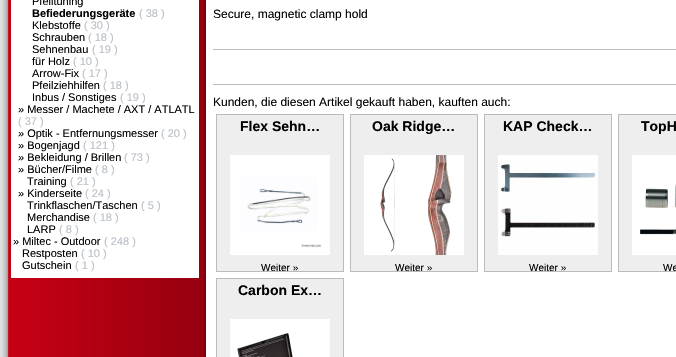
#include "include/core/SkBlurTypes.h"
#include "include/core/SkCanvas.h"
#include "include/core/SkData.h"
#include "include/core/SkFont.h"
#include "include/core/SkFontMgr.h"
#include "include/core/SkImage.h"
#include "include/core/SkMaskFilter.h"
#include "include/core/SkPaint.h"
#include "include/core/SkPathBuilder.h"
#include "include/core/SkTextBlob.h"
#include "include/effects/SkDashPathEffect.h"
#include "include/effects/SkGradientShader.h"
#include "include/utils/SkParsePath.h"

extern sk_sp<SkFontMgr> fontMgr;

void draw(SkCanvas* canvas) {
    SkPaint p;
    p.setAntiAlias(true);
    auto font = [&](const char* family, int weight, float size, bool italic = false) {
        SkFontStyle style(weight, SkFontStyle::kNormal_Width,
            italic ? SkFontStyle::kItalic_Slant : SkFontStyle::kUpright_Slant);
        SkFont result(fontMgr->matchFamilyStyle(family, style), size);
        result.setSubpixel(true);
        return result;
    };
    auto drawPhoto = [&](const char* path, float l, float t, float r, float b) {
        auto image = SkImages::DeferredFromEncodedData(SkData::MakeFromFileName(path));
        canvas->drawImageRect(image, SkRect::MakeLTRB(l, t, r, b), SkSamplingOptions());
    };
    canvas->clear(0xFFDEDFDF);
    drawPhoto("media/1.png", 2, 0, 210, 357);
    p.setColor(0xFFFFFFFF);
    canvas->drawRect(SkRect::MakeLTRB(11, 0, 199, 278), p);
    auto font1 = font("Liberation Sans", 400, 11);
    p.setColor(0xFF000000);
    canvas->drawString("Pfeiltuning", 32, 5, font1, p);
    auto font2 = font("Liberation Sans", 700, 11);
    canvas->drawString("Befiederungsgeräte", 32, 17, font2, p);
    p.setColor(0xFFBBC1C9);
    canvas->drawString("( 38 )", 139, 17, font1, p);
    p.setColor(0xFF000000);
    canvas->drawString("Klebstoffe", 32, 29, font1, p);
    p.setColor(0xFFBBC1C9);
    canvas->drawString("( 30 )", 84, 29, font1, p);
    p.setColor(0xFF000000);
    canvas->drawString("Schrauben", 32, 41, font1, p);
    p.setColor(0xFFBBC1C9);
    canvas->drawString("( 18 )", 88, 41, font1, p);
    p.setColor(0xFF000000);
    canvas->drawString("Sehnenbau", 32, 53, font1, p);
    p.setColor(0xFFBBC1C9);
    canvas->drawString("( 19 )", 92, 53, font1, p);
    p.setColor(0xFF000000);
    canvas->drawString("für Holz", 32, 65, font1, p);
    p.setColor(0xFFBBC1C9);
    canvas->drawString("( 10 )", 73, 65, font1, p);
    p.setColor(0xFF000000);
    canvas->drawString("Arrow-Fix", 32, 77, font1, p);
    p.setColor(0xFFBBC1C9);
    canvas->drawString("( 17 )", 82, 77, font1, p);
    p.setColor(0xFF000000);
    canvas->drawString("Pfeilziehhilfen", 32, 89, font1, p);
    p.setColor(0xFFBBC1C9);
    canvas->drawString("( 18 )", 103, 89, font1, p);
    p.setColor(0xFF000000);
    canvas->drawString("Inbus / Sonstiges", 32, 101, font1, p);
    p.setColor(0xFFBBC1C9);
    canvas->drawString("( 19 )", 120, 101, font1, p);
    p.setColor(0xFF000000);
    canvas->drawString("» Messer / Machete / AXT / ATLATL", 18, 113, font1, p);
    p.setColor(0xFFBBC1C9);
    canvas->drawString("( 37 )", 18, 125, font1, p);
    p.setColor(0xFF000000);
    canvas->drawString("» Optik - Entfernungsmesser", 18, 137, font1, p);
    p.setColor(0xFFBBC1C9);
    canvas->drawString("( 20 )", 161, 137, font1, p);
    p.setColor(0xFF000000);
    canvas->drawString("» Bogenjagd", 18, 149, font1, p);
    p.setColor(0xFFBBC1C9);
    canvas->drawString("( 121 )", 83, 149, font1, p);
    p.setColor(0xFF000000);
    canvas->drawString("» Bekleidung / Brillen", 18, 161, font1, p);
    p.setColor(0xFFBBC1C9);
    canvas->drawString("( 73 )", 124, 161, font1, p);
    p.setColor(0xFF000000);
    canvas->drawString("» Bücher/Filme", 18, 173, font1, p);
    p.setColor(0xFFBBC1C9);
    canvas->drawString("( 8 )", 95, 173, font1, p);
    p.setColor(0xFF000000);
    canvas->drawString("Training", 27, 185, font1, p);
    p.setColor(0xFFBBC1C9);
    canvas->drawString("( 21 )", 70, 185, font1, p);
    p.setColor(0xFF000000);
    canvas->drawString("» Kinderseite", 18, 197, font1, p);
    p.setColor(0xFFBBC1C9);
    canvas->drawString("( 24 )", 85, 197, font1, p);
    p.setColor(0xFF000000);
    canvas->drawString("Trinkflaschen/Taschen", 27, 209, font1, p);
    p.setColor(0xFFBBC1C9);
    canvas->drawString("( 5 )", 141, 209, font1, p);
    p.setColor(0xFF000000);
    canvas->drawString("Merchandise", 27, 221, font1, p);
    p.setColor(0xFFBBC1C9);
    canvas->drawString("( 18 )", 93, 221, font1, p);
    p.setColor(0xFF000000);
    canvas->drawString("LARP", 27, 233, font1, p);
    p.setColor(0xFFBBC1C9);
    canvas->drawString("( 8 )", 59, 233, font1, p);
    p.setColor(0xFF000000);
    canvas->drawString("» Miltec - Outdoor", 13, 245, font1, p);
    p.setColor(0xFFBBC1C9);
    canvas->drawString("( 248 )", 104, 245, font1, p);
    p.setColor(0xFF000000);
    canvas->drawString("Restposten", 22, 257, font1, p);
    p.setColor(0xFFBBC1C9);
    canvas->drawString("( 10 )", 81, 257, font1, p);
    p.setColor(0xFF000000);
    canvas->drawString("Gutschein", 22, 269, font1, p);
    p.setColor(0xFFBBC1C9);
    canvas->drawString("( 1 )", 75, 269, font1, p);
    p.setColor(0xFFFFFFFF);
    canvas->drawRect(SkRect::MakeLTRB(210, 0, 676, 357), p);
    auto font3 = font("Liberation Sans", 400, 12);
    p.setColor(0xFF000000);
    canvas->drawString("Secure, magnetic clamp hold", 213, 18, font3, p);
    p.setColor(0xFFBBBBBB);
    canvas->drawRect(SkRect::MakeLTRB(213, 49, 676, 50), p);
    canvas->drawRect(SkRect::MakeLTRB(213, 84, 676, 85), p);
    p.setColor(0xFF000000);
    canvas->drawString("Kunden, die diesen Artikel gekauft haben, kauften auch:", 213, 106, font3, p);
    p.setColor(0xFFEEEEEE);
    canvas->drawRect(SkRect::MakeLTRB(216.5f, 114.5f, 343.5f, 271.5f), p);
    p.setStyle(SkPaint::kStroke_Style);
    p.setStrokeWidth(1);
    p.setColor(0xFFBBBBBB);
    canvas->drawRect(SkRect::MakeLTRB(216.5f, 114.5f, 343.5f, 271.5f), p);
    auto font4 = font("Liberation Sans", 700, 14);
    p.setStyle(SkPaint::kFill_Style);
    p.setColor(0xFF000000);
    canvas->drawString("Flex Sehn…", 240, 131, font4, p);
    drawPhoto("media/2.png", 230, 155, 330, 255);
    auto font5 = font("Liberation Sans", 400, 10);
    canvas->drawString("Weiter »", 261, 271, font5, p);
    p.setColor(0xFFEEEEEE);
    canvas->drawRect(SkRect::MakeLTRB(350.5f, 114.5f, 477.5f, 271.5f), p);
    p.setStyle(SkPaint::kStroke_Style);
    p.setColor(0xFFBBBBBB);
    canvas->drawRect(SkRect::MakeLTRB(350.5f, 114.5f, 477.5f, 271.5f), p);
    p.setStyle(SkPaint::kFill_Style);
    p.setColor(0xFF000000);
    canvas->drawString("Oak Ridge…", 372, 131, font4, p);
    drawPhoto("media/3.png", 364, 155, 464, 255);
    canvas->drawString("Weiter »", 395, 271, font5, p);
    p.setColor(0xFFEEEEEE);
    canvas->drawRect(SkRect::MakeLTRB(484.5f, 114.5f, 611.5f, 271.5f), p);
    p.setStyle(SkPaint::kStroke_Style);
    p.setColor(0xFFBBBBBB);
    canvas->drawRect(SkRect::MakeLTRB(484.5f, 114.5f, 611.5f, 271.5f), p);
    p.setStyle(SkPaint::kFill_Style);
    p.setColor(0xFF000000);
    canvas->drawString("KAP Check…", 503, 131, font4, p);
    drawPhoto("media/4.png", 498, 155, 598, 255);
    canvas->drawString("Weiter »", 529, 271, font5, p);
    p.setColor(0xFFEEEEEE);
    canvas->drawRect(SkRect::MakeLTRB(618.5f, 114.5f, 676.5f, 271.5f), p);
    p.setStyle(SkPaint::kStroke_Style);
    p.setColor(0xFFBBBBBB);
    canvas->drawRect(SkRect::MakeLTRB(618.5f, 114.5f, 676.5f, 271.5f), p);
    p.setStyle(SkPaint::kFill_Style);
    p.setColor(0xFF000000);
    canvas->drawString("TopH", 641, 131, font4, p);
    drawPhoto("media/5.png", 632, 155, 676, 255);
    canvas->drawString("We", 663, 271, font5, p);
    p.setColor(0xFFEEEEEE);
    canvas->drawRect(SkRect::MakeLTRB(216.5f, 278.5f, 343.5f, 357.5f), p);
    p.setStyle(SkPaint::kStroke_Style);
    p.setColor(0xFFBBBBBB);
    canvas->drawRect(SkRect::MakeLTRB(216.5f, 278.5f, 343.5f, 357.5f), p);
    p.setStyle(SkPaint::kFill_Style);
    p.setColor(0xFF000000);
    canvas->drawString("Carbon Ex…", 238, 295, font4, p);
    drawPhoto("media/6.png", 230, 319, 330, 357);
}
